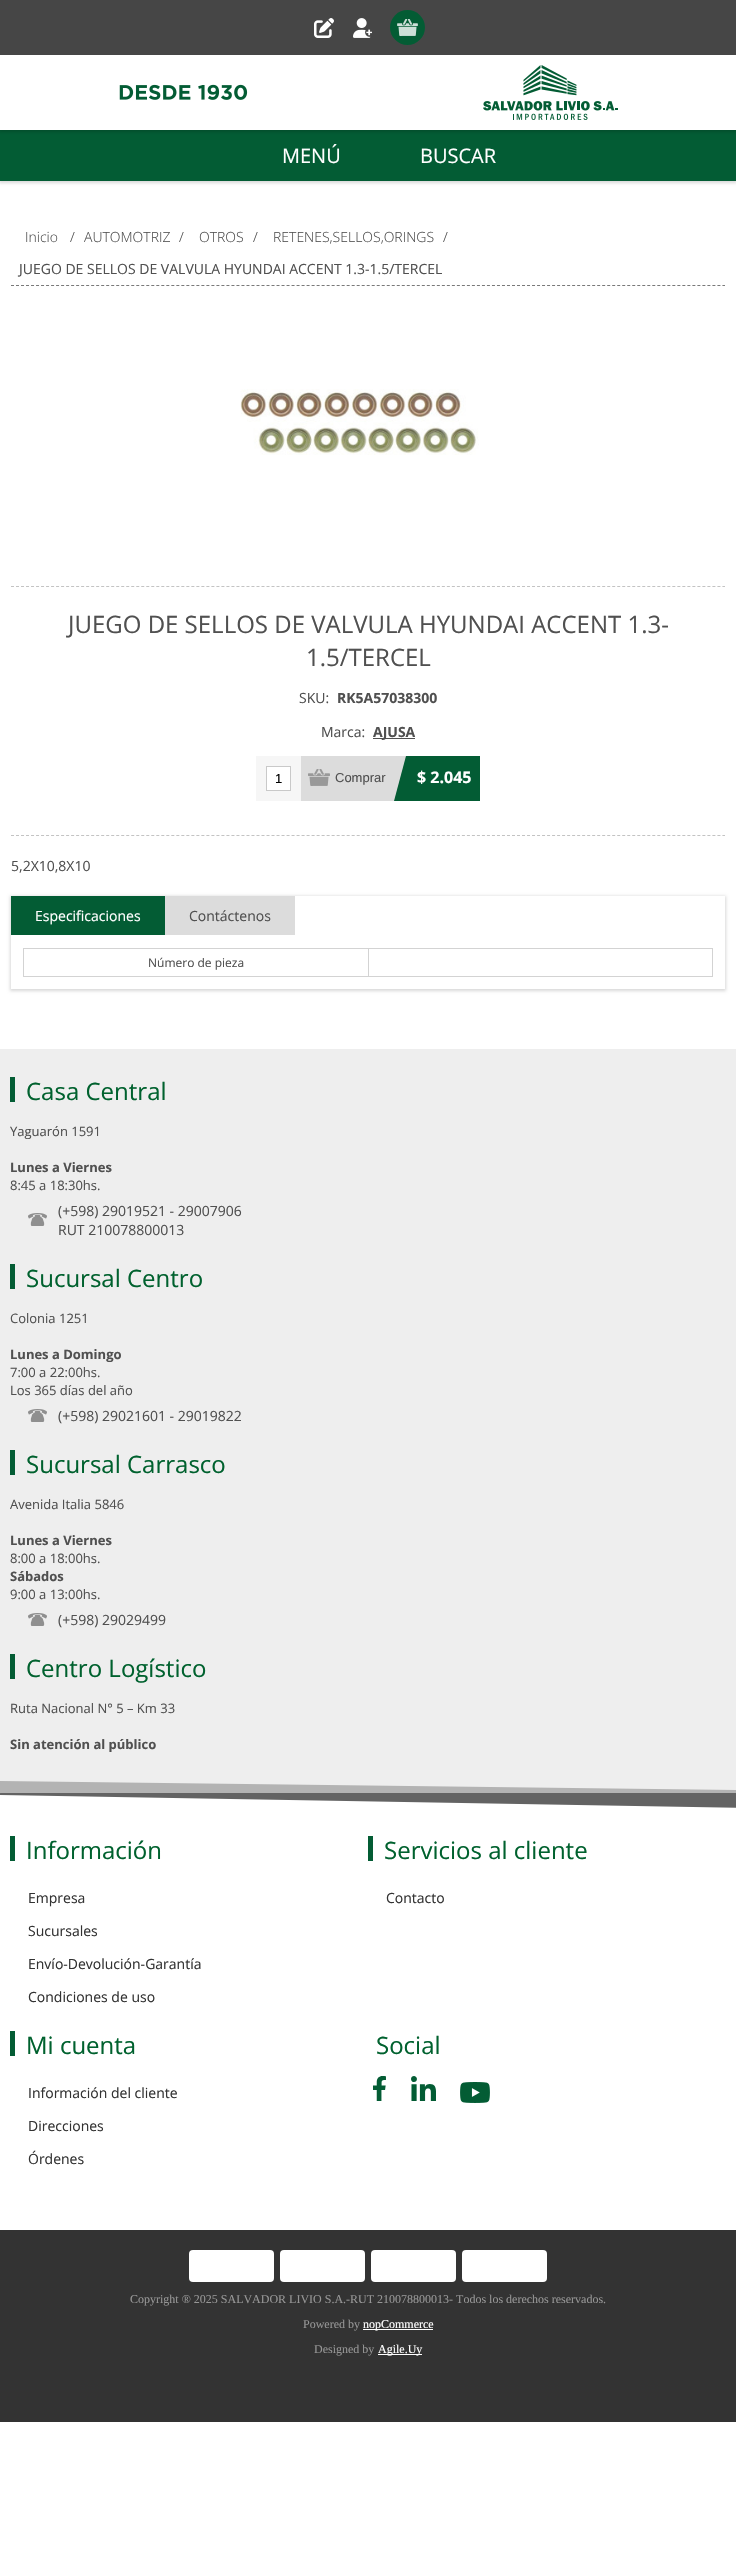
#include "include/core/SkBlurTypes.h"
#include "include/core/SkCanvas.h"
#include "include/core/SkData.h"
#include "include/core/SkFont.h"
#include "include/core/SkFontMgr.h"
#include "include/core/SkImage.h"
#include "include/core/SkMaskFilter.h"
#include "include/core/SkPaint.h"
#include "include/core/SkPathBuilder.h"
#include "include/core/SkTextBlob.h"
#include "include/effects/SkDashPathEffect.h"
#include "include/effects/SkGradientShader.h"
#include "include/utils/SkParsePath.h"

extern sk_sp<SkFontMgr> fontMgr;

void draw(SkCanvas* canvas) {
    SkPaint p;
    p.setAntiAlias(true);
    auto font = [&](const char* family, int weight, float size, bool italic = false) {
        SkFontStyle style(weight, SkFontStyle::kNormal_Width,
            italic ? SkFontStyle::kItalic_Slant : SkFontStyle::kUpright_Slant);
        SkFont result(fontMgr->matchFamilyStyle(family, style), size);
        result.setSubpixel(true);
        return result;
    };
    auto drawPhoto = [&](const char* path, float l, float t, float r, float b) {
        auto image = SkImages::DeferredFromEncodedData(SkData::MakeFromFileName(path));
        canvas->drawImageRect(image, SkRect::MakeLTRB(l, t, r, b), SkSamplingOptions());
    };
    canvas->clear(0xFFFFFFFF);
    p.setColor(0x26000000);
    p.setMaskFilter(SkMaskFilter::MakeBlur(kNormal_SkBlurStyle, 1.5f));
    canvas->drawRect(SkRect::MakeLTRB(-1, 130, 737, 183), p);
    p.setMaskFilter(nullptr);
    p.setColor(0xFF035C34);
    canvas->drawRect(SkRect::MakeLTRB(0, 130, 736, 181), p);
    p.setColor(0x26000000);
    p.setMaskFilter(SkMaskFilter::MakeBlur(kNormal_SkBlurStyle, 1.5f));
    canvas->drawRect(SkRect::MakeLTRB(-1, 0, 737, 132), p);
    p.setMaskFilter(nullptr);
    p.setColor(0xFF464646);
    canvas->drawRect(SkRect::MakeLTRB(0, 0, 736, 55), p);
    drawPhoto("media/1.png", 314, 18, 334, 38);
    drawPhoto("media/2.png", 353, 18, 372, 38);
    p.setColor(0xFF035C34);
    canvas->drawCircle(407.5f, 27.5f, 17.5f, p);
    drawPhoto("media/3.png", 397, 19, 418, 36);
    p.setColor(0xFFFFFFFF);
    canvas->drawRect(SkRect::MakeLTRB(0, 55, 736, 130), p);
    drawPhoto("media/4.png", 119, 84, 248, 100);
    drawPhoto("media/5.png", 483, 65, 618, 120);
    auto font1 = font("Open Sans", 400, 20);
    canvas->drawString("MENÚ", 282, 163, font1, p);
    canvas->drawString("BUSCAR", 420, 163, font1, p);
    p.setStyle(SkPaint::kStroke_Style);
    p.setStrokeWidth(1);
    p.setColor(0xFF797979);
    p.setPathEffect(SkDashPathEffect::Make({{3, 2.01f}}, 0));
    canvas->drawPath(SkPathBuilder().moveTo(11, 285.5f).lineTo(725, 285.5f).detach(), p);
    p.setPathEffect(nullptr);
    auto font2 = font("Open Sans", 300, 14);
    p.setStyle(SkPaint::kFill_Style);
    p.setColor(0xFF505050);
    {
        const struct { const char* s; float x, y; } items[] = {
            {"Inicio", 25, 242},
            {"/", 70, 242},
            {"AUTOMOTRIZ", 84, 242},
            {"/", 179, 242},
            {"OTROS", 199, 242},
            {"/", 253, 242},
            {"RETENES,SELLOS,ORINGS", 273, 242},
            {"/", 443, 242},
        };
        for (auto [s, x, y] : items) {
            canvas->drawString(s, x, y, font2, p);
        }
    }
    auto font3 = font("Open Sans", 400, 14);
    canvas->drawString("JUEGO DE SELLOS DE VALVULA HYUNDAI ACCENT 1.3-1.5/TERCEL", 19, 274, font3, p);
    p.setStyle(SkPaint::kStroke_Style);
    p.setColor(0xFFC3C3C3);
    p.setPathEffect(SkDashPathEffect::Make({{3, 2.01f}}, 0));
    canvas->drawPath(SkPathBuilder().moveTo(11, 586.5f).lineTo(725, 586.5f).detach(), p);
    p.setPathEffect(nullptr);
    drawPhoto("media/6.png", 240, 389, 479, 455);
    p.setPathEffect(SkDashPathEffect::Make({{3, 2.01f}}, 0));
    canvas->drawPath(SkPathBuilder().moveTo(11, 835.5f).lineTo(725, 835.5f).detach(), p);
    p.setPathEffect(nullptr);
    auto font4 = font("Open Sans", 400, 24);
    p.setStyle(SkPaint::kFill_Style);
    p.setColor(0xFF505050);
    canvas->drawString("JUEGO DE SELLOS DE VALVULA HYUNDAI ACCENT 1.3-", 68, 633, font4, p);
    canvas->drawString("1.5/TERCEL", 306, 666, font4, p);
    canvas->drawString("SKU:", 299, 703, font3, p);
    auto font5 = font("Open Sans", 700, 14);
    canvas->drawString("RK5A57038300", 337, 703, font5, p);
    canvas->drawString("Marca:", 321, 737, font3, p);
    canvas->drawRect(SkRect::MakeLTRB(373, 738, 415, 739), p);
    canvas->drawString("AJUSA", 373, 737, font5, p);
    p.setStyle(SkPaint::kStroke_Style);
    p.setColor(0xFFC9C9C9);
    canvas->drawRect(SkRect::MakeLTRB(266.5f, 766.5f, 290.5f, 790.5f), p);
    p.setStrokeWidth(10);
    p.setColor(0xFFF6F6F6);
    canvas->drawRect(SkRect::MakeLTRB(261, 761, 296, 796), p);
    auto font6 = font("Liberation Sans", 400, 13);
    p.setStyle(SkPaint::kFill_Style);
    p.setColor(0xFF000000);
    canvas->drawString("1", 275, 783, font6, p);
    p.setColor(0xFFDCDCDC);
    canvas->drawRect(SkRect::MakeLTRB(301, 756, 406, 801), p);
    drawPhoto("media/7.png", 308, 769, 330, 786);
    p.setColor(0xFF505050);
    canvas->drawString("Comprar", 335, 782, font6, p);
    p.setColor(0xFF035C34);
    canvas->drawRect(SkRect::MakeLTRB(409, 756, 480, 801), p);
    auto font7 = font("Open Sans", 700, 16);
    p.setColor(0xFFFFFFFF);
    canvas->drawString("$ 2.045", 417, 783, font7, p);
    p.setColor(0xFF035C34);
    canvas->drawPath(SkPathBuilder().moveTo(406, 756).lineTo(421, 756).lineTo(409, 801).lineTo(394, 801).close().detach(), p);
    p.setColor(0xFF505050);
    canvas->drawString("5,2X10,8X10", 11, 871, font3, p);
    canvas->save();
    canvas->clipPath(SkPathBuilder(SkPathFillType::kEvenOdd).moveTo(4, 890).lineTo(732, 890).lineTo(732, 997).lineTo(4, 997).close().moveTo(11, 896).lineTo(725, 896).lineTo(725, 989).lineTo(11, 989).close().detach(), true);
    p.setColor(0x26000000);
    p.setMaskFilter(SkMaskFilter::MakeBlur(kNormal_SkBlurStyle, 1.5f));
    canvas->drawRect(SkRect::MakeLTRB(10, 896, 726, 991), p);
    p.setMaskFilter(nullptr);
    canvas->restore();
    p.setColor(0xFF035C34);
    canvas->drawRect(SkRect::MakeLTRB(11, 896, 165, 935), p);
    p.setColor(0xFFFFFFFF);
    canvas->drawString("Especificaciones", 35, 921, font3, p);
    p.setColor(0xFFDCDCDC);
    canvas->drawRect(SkRect::MakeLTRB(165, 896, 295, 935), p);
    p.setColor(0xFF505050);
    canvas->drawString("Contáctenos", 189, 921, font3, p);
    {
        const struct { float l, t, r, b; SkColor color; } items[] = {
            {368, 948, 713, 949, 0xFFD3D3D3},
            {712, 948, 713, 977, 0xFFD3D3D3},
            {368, 976, 713, 977, 0xFFD3D3D3},
            {368, 948, 369, 977, 0xFFD3D3D3},
            {23, 948, 369, 949, 0xFFD3D3D3},
            {23, 976, 369, 977, 0xFFD3D3D3},
            {23, 948, 24, 977, 0xFFD3D3D3},
        };
        for (auto [l, t, r, b, color] : items) {
            p.setColor(color);
            canvas->drawRect(SkRect::MakeLTRB(l, t, r, b), p);
        }
    }
    auto font8 = font("Open Sans", 400, 12);
    p.setColor(0xFF505050);
    canvas->drawString("Número de pieza", 148, 967, font8, p);
    p.setColor(0xFFEEEEEE);
    canvas->drawRect(SkRect::MakeLTRB(0, 1049, 736, 1790), p);
    p.setColor(0xFF035C34);
    canvas->drawRect(SkRect::MakeLTRB(10, 1077, 15, 1102), p);
    p.setColor(0xFF00612E);
    canvas->drawString("Casa Central", 26, 1100, font4, p);
    auto font9 = font("Open Sans", 400, 13);
    p.setColor(0xFF505050);
    canvas->drawString("Yaguarón 1591", 10, 1136, font9, p);
    auto font10 = font("Open Sans", 700, 13);
    canvas->drawString("Lunes a Viernes", 10, 1172, font10, p);
    canvas->drawString("8:45 a 18:30hs.", 10, 1190, font9, p);
    drawPhoto("media/8.png", 28, 1213, 47, 1226);
    canvas->drawString("(+598) 29019521 - 29007906", 58, 1216, font3, p);
    canvas->drawString("RUT 210078800013", 58, 1235, font3, p);
    p.setColor(0xFF035C34);
    canvas->drawRect(SkRect::MakeLTRB(10, 1264, 15, 1289), p);
    p.setColor(0xFF00612E);
    canvas->drawString("Sucursal Centro", 26, 1287, font4, p);
    p.setColor(0xFF505050);
    canvas->drawString("Colonia 1251", 10, 1323, font9, p);
    canvas->drawString("Lunes a Domingo", 10, 1359, font10, p);
    canvas->drawString("7:00 a 22:00hs.", 10, 1377, font9, p);
    canvas->drawString("Los 365 días del año", 10, 1395, font9, p);
    drawPhoto("media/8.png", 28, 1409, 47, 1422);
    canvas->drawString("(+598) 29021601 - 29019822", 58, 1421, font3, p);
    p.setColor(0xFF035C34);
    canvas->drawRect(SkRect::MakeLTRB(10, 1450, 15, 1475), p);
    p.setColor(0xFF00612E);
    canvas->drawString("Sucursal Carrasco", 26, 1473, font4, p);
    p.setColor(0xFF505050);
    canvas->drawString("Avenida Italia 5846", 10, 1509, font9, p);
    canvas->drawString("Lunes a Viernes", 10, 1545, font10, p);
    canvas->drawString("8:00 a 18:00hs.", 10, 1563, font9, p);
    canvas->drawString("Sábados", 10, 1581, font10, p);
    canvas->drawString("9:00 a 13:00hs.", 10, 1599, font9, p);
    drawPhoto("media/8.png", 28, 1613, 47, 1626);
    canvas->drawString("(+598) 29029499", 58, 1625, font3, p);
    p.setColor(0xFF035C34);
    canvas->drawRect(SkRect::MakeLTRB(10, 1654, 15, 1679), p);
    p.setColor(0xFF00612E);
    canvas->drawString("Centro Logístico", 26, 1677, font4, p);
    p.setColor(0xFF505050);
    canvas->drawString("Ruta Nacional N° 5 – Km 33", 10, 1713, font9, p);
    canvas->drawString("Sin atención al público", 10, 1749, font10, p);
    canvas->save();
    canvas->clipRect(SkRect::MakeLTRB(0, 1049, 736, 1793));
    p.setColor(0xFFB3B3B3);
    canvas->drawPath(SkPathBuilder().moveTo(0, 1781).lineTo(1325, 1797).lineTo(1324, 1847).lineTo(0, 1831).close().detach(), p);
    canvas->restore();
    canvas->save();
    canvas->clipRect(SkRect::MakeLTRB(0, 1793, 736, 2230));
    p.setColor(0xFF636363);
    canvas->drawPath(SkPathBuilder().moveTo(1, 1745).lineTo(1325, 1768).lineTo(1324, 1818).lineTo(0, 1795).close().detach(), p);
    canvas->restore();
    p.setColor(0xFF035C34);
    canvas->drawRect(SkRect::MakeLTRB(10, 1836, 15, 1861), p);
    p.setColor(0xFF00612E);
    canvas->drawString("Información", 26, 1859, font4, p);
    p.setColor(0xFF333333);
    {
        const struct { const char* s; float x, y; } items[] = {
            {"Empresa", 28, 1903},
            {"Sucursales", 28, 1936},
            {"Envío-Devolución-Garantía", 28, 1969},
            {"Condiciones de uso", 28, 2002},
        };
        for (auto [s, x, y] : items) {
            canvas->drawString(s, x, y, font3, p);
        }
    }
    p.setColor(0xFF035C34);
    canvas->drawRect(SkRect::MakeLTRB(368, 1836, 373, 1861), p);
    p.setColor(0xFF00612E);
    canvas->drawString("Servicios al cliente", 384, 1859, font4, p);
    p.setColor(0xFF333333);
    canvas->drawString("Contacto", 386, 1903, font3, p);
    p.setColor(0xFF035C34);
    canvas->drawRect(SkRect::MakeLTRB(10, 2031, 15, 2056), p);
    p.setColor(0xFF00612E);
    canvas->drawString("Mi cuenta", 26, 2054, font4, p);
    p.setColor(0xFF333333);
    {
        const struct { const char* s; float x, y; } items[] = {
            {"Información del cliente", 28, 2098},
            {"Direcciones", 28, 2131},
            {"Órdenes", 28, 2164},
        };
        for (auto [s, x, y] : items) {
            canvas->drawString(s, x, y, font3, p);
        }
    }
    p.setColor(0xFF00612E);
    canvas->drawString("Social", 376, 2054, font4, p);
    drawPhoto("media/9.png", 373, 2076, 386, 2101);
    drawPhoto("media/10.png", 411, 2076, 436, 2101);
    drawPhoto("media/11.png", 460, 2082, 490, 2103);
    p.setColor(0xFF333333);
    canvas->drawRect(SkRect::MakeLTRB(0, 2230, 736, 2422), p);
    p.setColor(0xFFFFFFFF);
    canvas->drawRoundRect(SkRect::MakeLTRB(189, 2250, 274, 2282), 4, 4, p);
    canvas->drawRoundRect(SkRect::MakeLTRB(280, 2250, 365, 2282), 4, 4, p);
    canvas->drawRoundRect(SkRect::MakeLTRB(371, 2250, 456, 2282), 4, 4, p);
    canvas->drawRoundRect(SkRect::MakeLTRB(462, 2250, 547, 2282), 4, 4, p);
    auto font11 = font("Liberation Serif", 400, 12);
    p.setColor(0xFF969696);
    canvas->drawString("Copyright ® 2025 SALVADOR LIVIO S.A.-RUT 210078800013- Todos los derechos reservados.", 130, 2303, font11, p);
    canvas->drawString("Powered by", 303, 2328, font11, p);
    p.setColor(0xFFFFFFFF);
    canvas->drawRect(SkRect::MakeLTRB(363, 2329, 433, 2330), p);
    canvas->drawString("nopCommerce", 363, 2328, font11, p);
    p.setColor(0xFF969696);
    canvas->drawString("Designed by", 314, 2353, font11, p);
    p.setColor(0xFFFFFFFF);
    canvas->drawRect(SkRect::MakeLTRB(378, 2354, 422, 2355), p);
    canvas->drawString("Agile.Uy", 378, 2353, font11, p);
}
